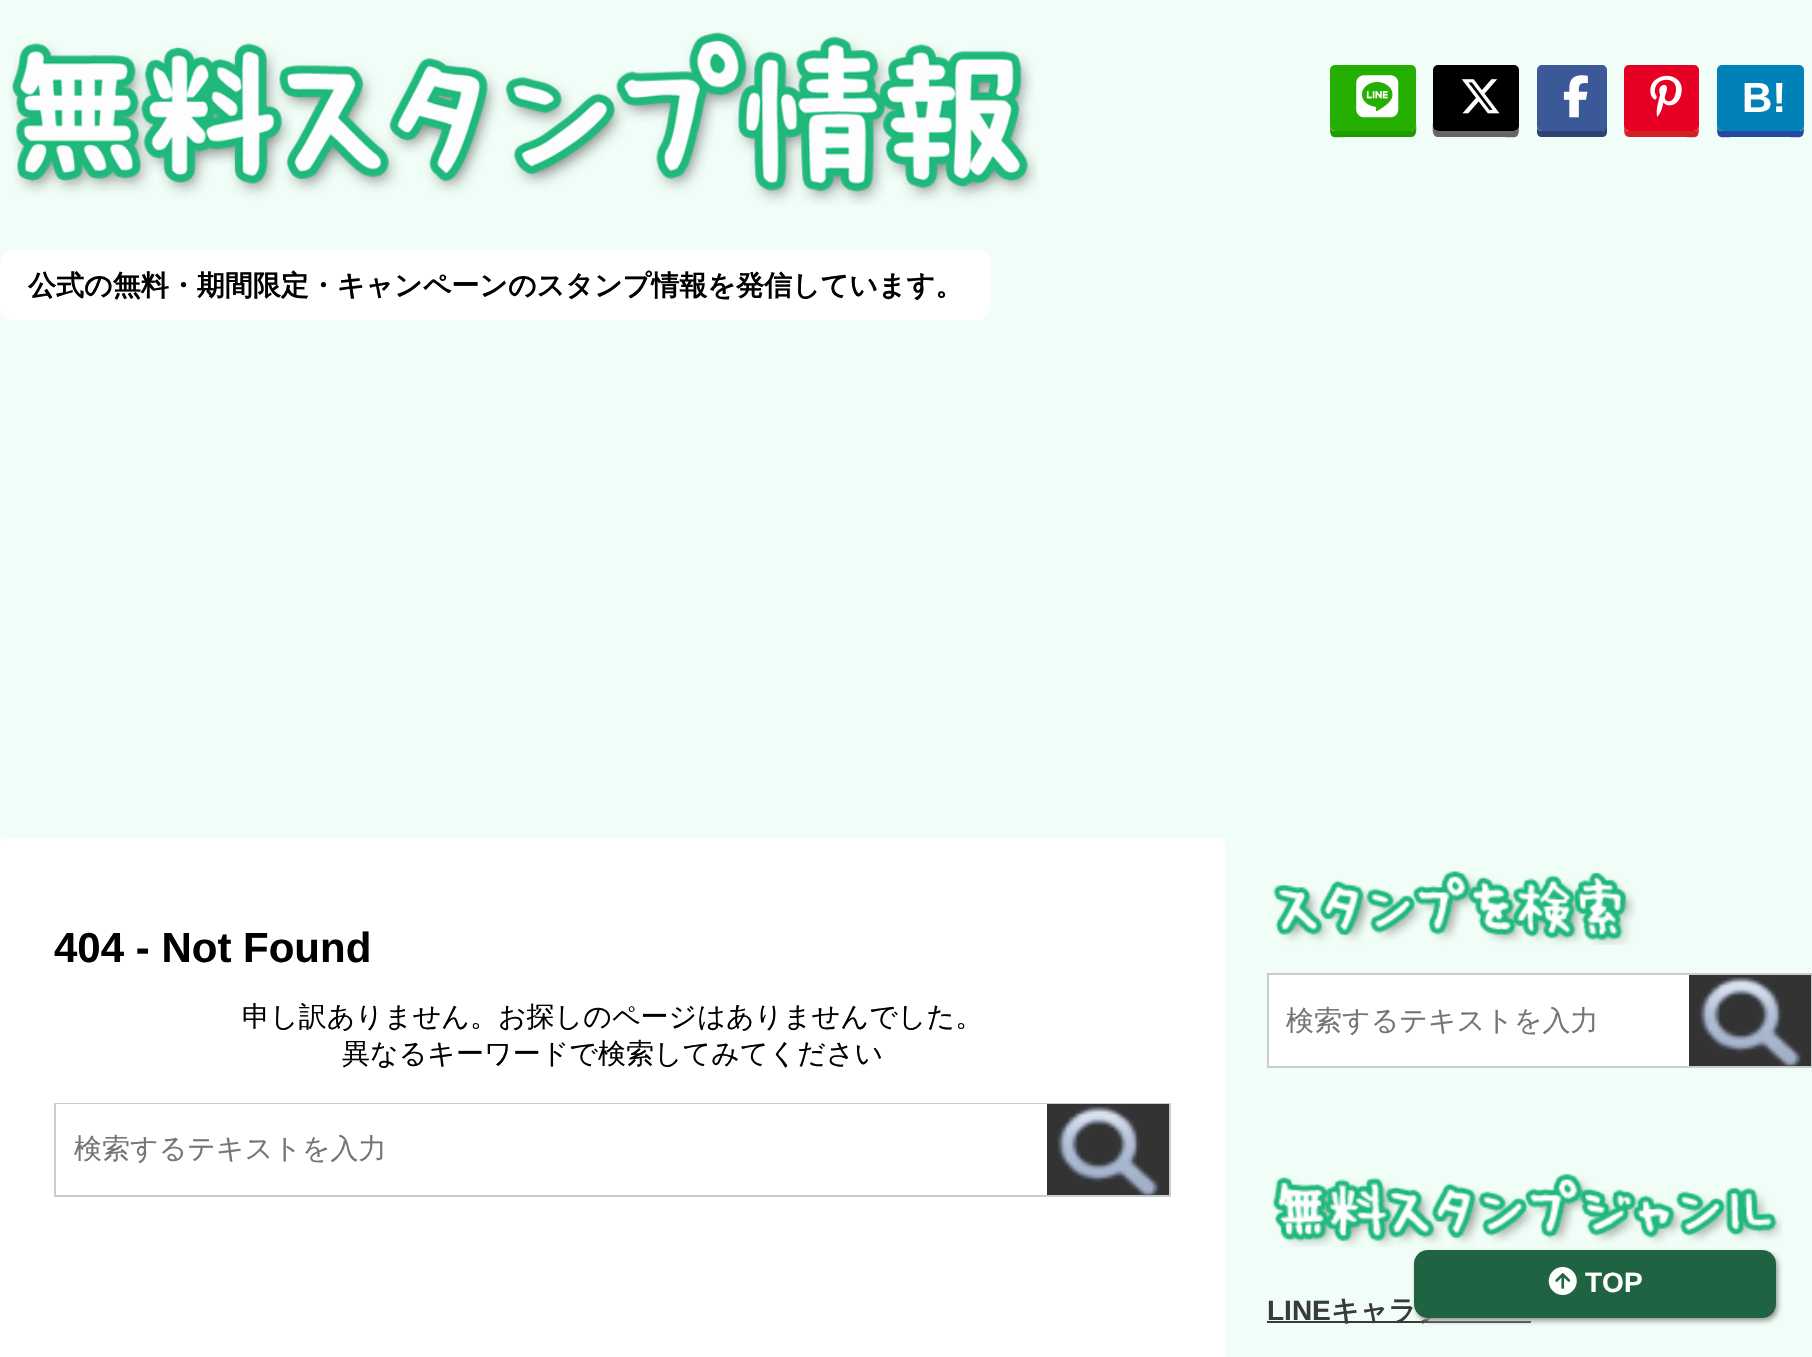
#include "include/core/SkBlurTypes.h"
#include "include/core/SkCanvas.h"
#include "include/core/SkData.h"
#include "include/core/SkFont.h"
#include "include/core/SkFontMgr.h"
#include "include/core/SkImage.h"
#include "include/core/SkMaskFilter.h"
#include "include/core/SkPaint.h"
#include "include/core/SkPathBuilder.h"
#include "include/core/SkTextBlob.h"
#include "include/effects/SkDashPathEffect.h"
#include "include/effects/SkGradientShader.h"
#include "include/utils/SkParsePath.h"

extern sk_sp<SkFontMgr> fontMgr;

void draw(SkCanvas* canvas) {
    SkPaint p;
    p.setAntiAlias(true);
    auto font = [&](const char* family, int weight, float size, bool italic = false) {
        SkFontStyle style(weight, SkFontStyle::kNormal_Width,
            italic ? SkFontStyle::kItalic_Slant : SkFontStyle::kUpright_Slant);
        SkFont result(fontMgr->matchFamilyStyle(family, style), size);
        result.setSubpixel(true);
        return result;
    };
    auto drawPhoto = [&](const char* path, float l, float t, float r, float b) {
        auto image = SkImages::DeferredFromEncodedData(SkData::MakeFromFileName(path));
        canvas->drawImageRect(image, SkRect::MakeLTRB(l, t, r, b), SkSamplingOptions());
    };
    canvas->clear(0xFFF1FEF8);
    p.setColor(0xFF219900);
    canvas->drawPath(SkPathBuilder().moveTo(1330, 126).cubicTo(1330, 140, 1332, 137, 1348, 137).lineTo(1412, 137).cubicTo(1418, 136, 1416, 126, 1416, 122).lineTo(1416, 73).lineTo(1416, 126).cubicTo(1416, 129, 1413, 131, 1410, 131).lineTo(1335, 131).cubicTo(1332, 131, 1330, 129, 1330, 126).close().detach(), p);
    p.setColor(0xFF25AF00);
    canvas->drawRoundRect(SkRect::MakeLTRB(1330, 65, 1416, 131), 5, 5, p);
    drawPhoto("media/1.png", 1356, 75, 1399, 118);
    p.setColor(0xFF666666);
    canvas->drawPath(SkPathBuilder().moveTo(1433, 73).lineTo(1433, 122).cubicTo(1433, 126, 1431, 136, 1437, 137).lineTo(1501, 137).cubicTo(1517, 137, 1519, 140, 1519, 126).cubicTo(1519, 129, 1517, 131, 1514, 131).lineTo(1438, 131).cubicTo(1436, 131, 1433, 129, 1433, 126).close().detach(), p);
    p.setColor(0xFF000000);
    canvas->drawRoundRect(SkRect::MakeLTRB(1433, 65, 1519, 131), 5, 5, p);
    drawPhoto("media/2.png", 1461, 79, 1500, 114);
    p.setColor(0xFF2C4373);
    canvas->drawPath(SkPathBuilder().moveTo(1537, 128).lineTo(1537, 132).cubicTo(1537, 135, 1539, 137, 1542, 137).lineTo(1602, 137).cubicTo(1605, 137, 1607, 135, 1607, 132).lineTo(1607, 75).lineTo(1606, 73).lineTo(1606, 126).cubicTo(1606, 129, 1604, 131, 1601, 131).lineTo(1542, 131).cubicTo(1540, 131, 1538, 130, 1537, 128).close().detach(), p);
    p.setColor(0xFF3B5998);
    canvas->drawRoundRect(SkRect::MakeLTRB(1537, 65, 1607, 131), 5, 5, p);
    drawPhoto("media/3.png", 1563, 75, 1588, 118);
    p.setColor(0xFFD02222);
    canvas->drawPath(SkPathBuilder().moveTo(1624, 126).cubicTo(1624, 139, 1626, 137, 1640, 137).lineTo(1683, 137).cubicTo(1695, 137, 1699, 140, 1699, 128).cubicTo(1698, 130, 1696, 131, 1694, 131).lineTo(1629, 131).cubicTo(1626, 131, 1624, 129, 1624, 126).close().detach(), p);
    p.setColor(0xFFE60023);
    canvas->drawRoundRect(SkRect::MakeLTRB(1624, 65, 1699, 131), 5, 5, p);
    drawPhoto("media/4.png", 1650, 75, 1682, 117);
    p.setColor(0xFF26499D);
    canvas->drawPath(SkPathBuilder().moveTo(1717, 128).cubicTo(1717, 140, 1721, 137, 1735, 137).lineTo(1786, 137).cubicTo(1800, 137, 1804, 140, 1804, 128).cubicTo(1803, 130, 1801, 131, 1799, 131).lineTo(1722, 131).cubicTo(1720, 131, 1718, 130, 1717, 128).close().detach(), p);
    p.setColor(0xFF0081B8);
    canvas->drawRoundRect(SkRect::MakeLTRB(1717, 65, 1804, 131), 5, 5, p);
    auto font1 = font("Liberation Sans", 700, 42);
    p.setColor(0xFFFFFFFF);
    canvas->drawString("B!", 1742, 112, font1, p);
    drawPhoto("media/5.png", 9, 32, 1038, 205);
    canvas->drawRoundRect(SkRect::MakeLTRB(0, 250, 991, 320), 14, 14, p);
    auto font2 = font("WenQuanYi Zen Hei", 700, 28);
    p.setColor(0xFF000000);
    canvas->drawString("公式の無料・期間限定・キャンペーンのスタンプ情報を発信しています。", 28, 295, font2, p);
    p.setColor(0xFFFFFFFF);
    canvas->drawRoundRect(SkRect::MakeLTRB(0, 838, 1225, 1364), 7, 7, p);
    p.setColor(0xFF000000);
    canvas->drawString("404 - Not Found", 54, 962, font1, p);
    auto font3 = font("WenQuanYi Zen Hei", 500, 28);
    canvas->drawString("申し訳ありません。お探しのページはありませんでした。", 242, 1026, font3, p);
    canvas->drawString("異なるキーワードで検索してみてください", 342, 1063, font3, p);
    p.setStyle(SkPaint::kStroke_Style);
    p.setStrokeWidth(2);
    p.setColor(0xFFCCCCCC);
    canvas->drawRect(SkRect::MakeLTRB(55, 1104, 1170, 1196), p);
    p.setStyle(SkPaint::kFill_Style);
    p.setColor(0xFFFFFFFF);
    canvas->drawRect(SkRect::MakeLTRB(56, 1104, 1047, 1105), p);
    p.setColor(0xFF757575);
    canvas->drawString("検索するテキストを入力", 74, 1158, font3, p);
    p.setColor(0xFF333333);
    canvas->drawRect(SkRect::MakeLTRB(1047, 1104, 1169, 1195), p);
    drawPhoto("media/6.png", 1057, 1106, 1160, 1196);
    drawPhoto("media/7.png", 1273, 871, 1636, 945);
    p.setStyle(SkPaint::kStroke_Style);
    p.setColor(0xFFCCCCCC);
    canvas->drawRect(SkRect::MakeLTRB(1268, 974, 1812, 1067), p);
    p.setStyle(SkPaint::kFill_Style);
    p.setColor(0xFFFFFFFF);
    canvas->drawRect(SkRect::MakeLTRB(1269, 975, 1689, 1066), p);
    p.setColor(0xFF757575);
    canvas->drawString("検索するテキストを入力", 1286, 1030, font3, p);
    p.setColor(0xFF333333);
    canvas->drawRect(SkRect::MakeLTRB(1689, 975, 1811, 1066), p);
    drawPhoto("media/8.png", 1699, 977, 1802, 1066);
    drawPhoto("media/9.png", 1272, 1173, 1782, 1247);
    auto font4 = font("Liberation Sans", 700, 28);
    p.setColor(0xFF3A3A3A);
    canvas->drawString("LINE", 1267, 1320, font4, p);
    canvas->drawRect(SkRect::MakeLTRB(1267, 1321, 1531, 1323), p);
    canvas->drawString("キャラク", 1331, 1320, font2, p);
    p.setColor(0xFF999999);
    p.setMaskFilter(SkMaskFilter::MakeBlur(kNormal_SkBlurStyle, 2.5f));
    canvas->drawRoundRect(SkRect::MakeLTRB(1416, 1253, 1778, 1321), 14, 14, p);
    p.setMaskFilter(nullptr);
    p.setColor(0xFF206342);
    canvas->drawRoundRect(SkRect::MakeLTRB(1414, 1250, 1776, 1318), 14, 14, p);
    drawPhoto("media/10.png", 1548, 1267, 1577, 1295);
    p.setColor(0xFFFFFFFF);
    canvas->drawString("TOP", 1585, 1292, font4, p);
}
